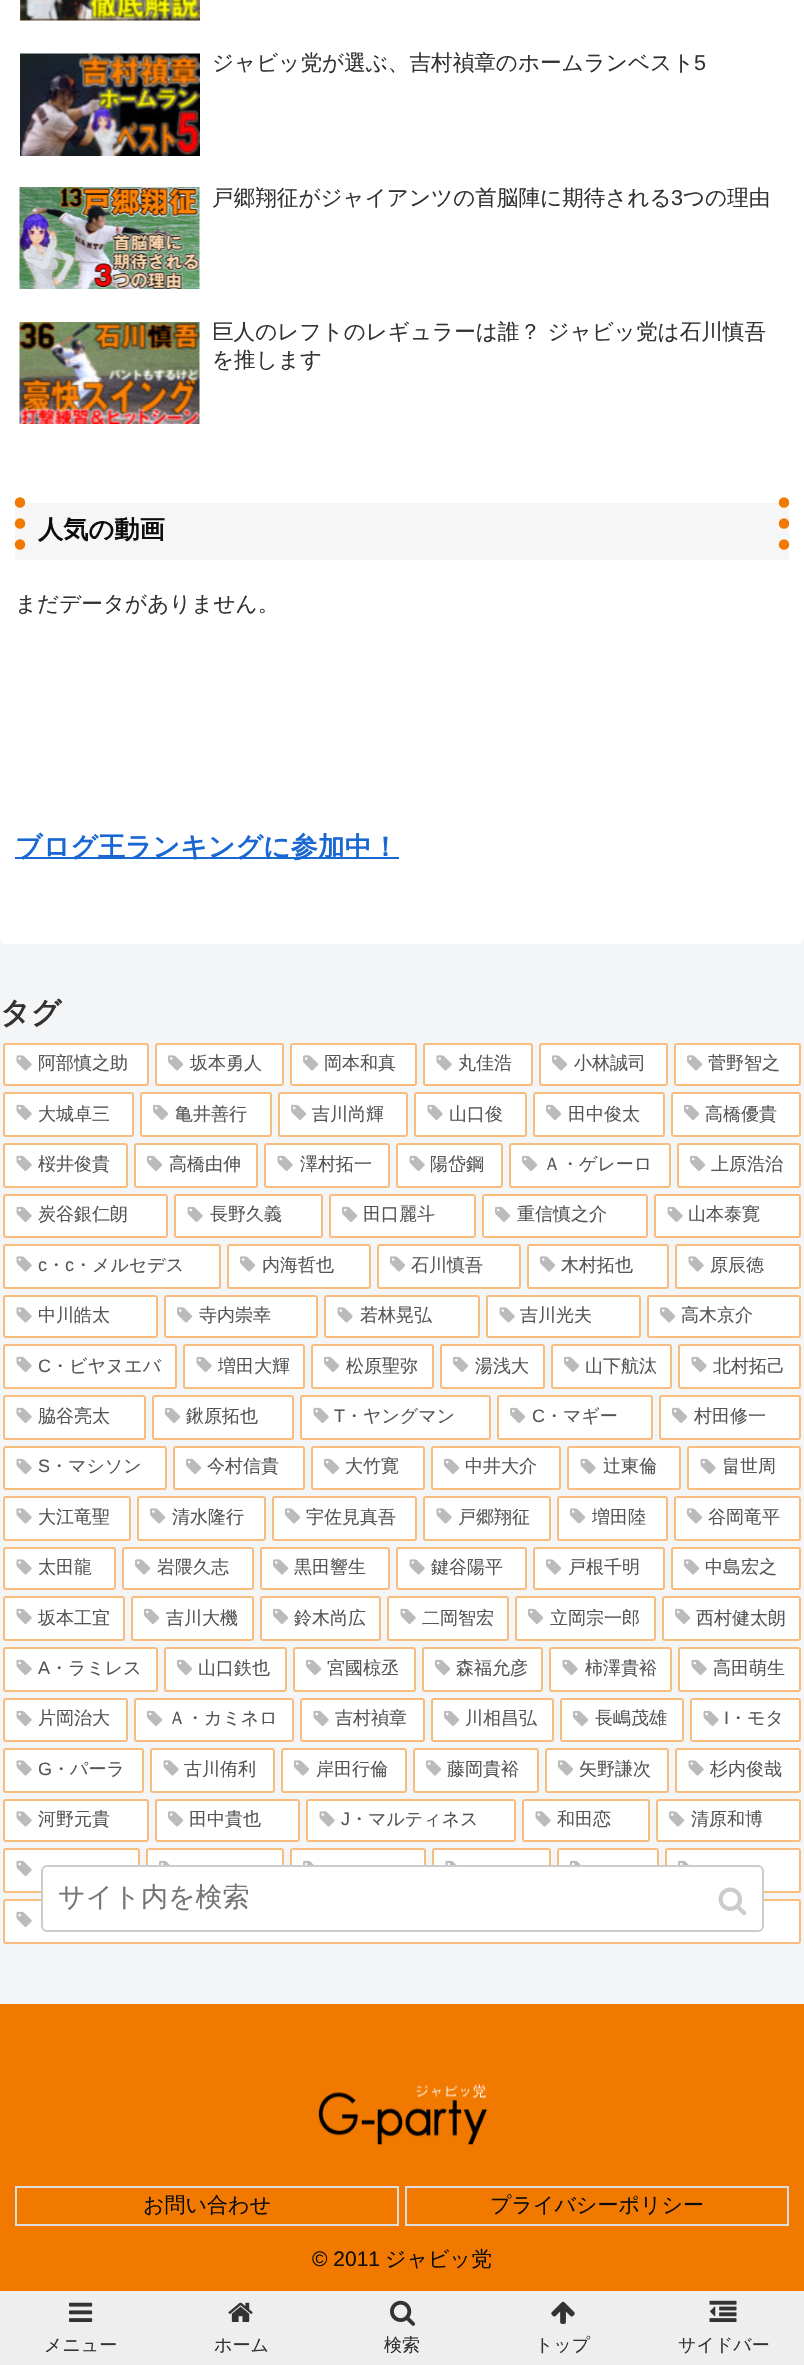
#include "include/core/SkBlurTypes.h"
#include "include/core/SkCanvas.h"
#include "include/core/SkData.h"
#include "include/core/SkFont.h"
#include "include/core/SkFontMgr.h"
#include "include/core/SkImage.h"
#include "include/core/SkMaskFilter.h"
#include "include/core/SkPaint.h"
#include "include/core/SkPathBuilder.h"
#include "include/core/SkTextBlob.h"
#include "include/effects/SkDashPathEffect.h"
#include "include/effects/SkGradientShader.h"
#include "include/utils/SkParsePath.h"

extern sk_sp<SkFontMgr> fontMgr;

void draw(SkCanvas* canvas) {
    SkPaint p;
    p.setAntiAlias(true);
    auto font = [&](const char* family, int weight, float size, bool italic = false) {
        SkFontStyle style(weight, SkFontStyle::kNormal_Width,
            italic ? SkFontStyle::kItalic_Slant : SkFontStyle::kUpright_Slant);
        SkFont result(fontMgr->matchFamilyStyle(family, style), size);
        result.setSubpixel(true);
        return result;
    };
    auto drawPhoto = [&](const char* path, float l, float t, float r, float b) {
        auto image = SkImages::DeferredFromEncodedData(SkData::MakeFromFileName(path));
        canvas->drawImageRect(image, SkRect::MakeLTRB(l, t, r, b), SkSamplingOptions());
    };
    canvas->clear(0xFFF4F5F7);
    p.setColor(0xFFFFFFFF);
    canvas->drawRoundRect(SkRect::MakeLTRB(0, -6, 804, 944), 6, 6, p);
    drawPhoto("media/1.png", 20, 0, 200, 21);
    drawPhoto("media/2.png", 20, 53, 200, 156);
    auto font1 = font("WenQuanYi Zen Hei", 500, 21.6f);
    p.setColor(0xFF333333);
    canvas->drawString("ジャビッ党が選ぶ、吉村禎章のホームランベスト", 212, 70, font1, p);
    auto font2 = font("Liberation Sans", 400, 21.6f);
    canvas->drawString("5", 694, 70, font2, p);
    drawPhoto("media/3.png", 19, 187, 200, 289);
    canvas->drawString("戸郷翔征がジャイアンツの首脳陣に期待される", 212, 205, font1, p);
    canvas->drawString("3", 671, 205, font2, p);
    canvas->drawString("つの理由", 683, 205, font1, p);
    drawPhoto("media/4.png", 19, 322, 200, 424);
    canvas->drawString("巨人のレフトのレギュラーは誰？ ジャビッ党は石川慎吾", 212, 339, font1, p);
    canvas->drawString("を推します", 212, 367, font1, p);
    p.setColor(0xFFF6F6F6);
    canvas->drawRect(SkRect::MakeLTRB(15, 503, 789, 560), p);
    p.setStyle(SkPaint::kStroke_Style);
    p.setStrokeWidth(10.5f);
    p.setStrokeCap(SkPaint::kRound_Cap);
    p.setColor(0xFFF27900);
    p.setPathEffect(SkDashPathEffect::Make({{0, 21}}, 0));
    canvas->drawPath(SkPathBuilder().moveTo(784, 502.5f).lineTo(784, 559.5f).detach(), p);
    p.setPathEffect(nullptr);
    p.setPathEffect(SkDashPathEffect::Make({{0, 21}}, 0));
    canvas->drawPath(SkPathBuilder().moveTo(20, 502.5f).lineTo(20, 559.5f).detach(), p);
    p.setPathEffect(nullptr);
    auto font3 = font("WenQuanYi Zen Hei", 700, 25.25f);
    p.setStyle(SkPaint::kFill_Style);
    p.setColor(0xFF0C0C0C);
    canvas->drawString("人気の動画", 38, 538, font3, p);
    p.setColor(0xFF333333);
    canvas->drawString("まだデータがありません。", 15, 611, font1, p);
    p.setColor(0xFF1967D2);
    canvas->drawRect(SkRect::MakeLTRB(15, 857, 399, 859), p);
    auto font4 = font("WenQuanYi Zen Hei", 700, 27);
    canvas->drawString("ブログ王ランキングに参加中！", 15, 856, font4, p);
    auto font5 = font("WenQuanYi Zen Hei", 700, 30);
    p.setColor(0xFF333333);
    canvas->drawString("タグ", 0, 1023, font5, p);
    p.setColor(0xFFFFFFFF);
    canvas->drawRoundRect(SkRect::MakeLTRB(3, 1043, 149, 1086), 3, 3, p);
    p.setStyle(SkPaint::kStroke_Style);
    p.setStrokeWidth(2);
    p.setStrokeCap(SkPaint::kButt_Cap);
    p.setColor(0x80F27900);
    canvas->drawRoundRect(SkRect::MakeLTRB(4, 1044, 148, 1085), 2, 2, p);
    drawPhoto("media/5.png", 16, 1055, 32, 1071);
    auto font6 = font("WenQuanYi Zen Hei", 500, 18);
    p.setStyle(SkPaint::kFill_Style);
    p.setColor(0xFF555555);
    canvas->drawString("阿部慎之助", 38, 1069, font6, p);
    p.setColor(0xFFFFFFFF);
    canvas->drawRoundRect(SkRect::MakeLTRB(155, 1043, 284, 1086), 3, 3, p);
    p.setStyle(SkPaint::kStroke_Style);
    p.setColor(0x80F27900);
    canvas->drawRoundRect(SkRect::MakeLTRB(156, 1044, 283, 1085), 2, 2, p);
    drawPhoto("media/6.png", 168, 1055, 184, 1071);
    p.setStyle(SkPaint::kFill_Style);
    p.setColor(0xFF555555);
    canvas->drawString("坂本勇人", 190, 1069, font6, p);
    p.setColor(0xFFFFFFFF);
    canvas->drawRoundRect(SkRect::MakeLTRB(290, 1043, 417, 1086), 3, 3, p);
    p.setStyle(SkPaint::kStroke_Style);
    p.setColor(0x80F27900);
    canvas->drawRoundRect(SkRect::MakeLTRB(291, 1044, 416, 1085), 2, 2, p);
    drawPhoto("media/6.png", 303, 1055, 319, 1071);
    p.setStyle(SkPaint::kFill_Style);
    p.setColor(0xFF555555);
    canvas->drawString("岡本和真", 324, 1069, font6, p);
    p.setColor(0xFFFFFFFF);
    canvas->drawRoundRect(SkRect::MakeLTRB(423, 1043, 533, 1086), 3, 3, p);
    p.setStyle(SkPaint::kStroke_Style);
    p.setColor(0x80F27900);
    canvas->drawRoundRect(SkRect::MakeLTRB(424, 1044, 532, 1085), 2, 2, p);
    drawPhoto("media/5.png", 436, 1055, 452, 1071);
    p.setStyle(SkPaint::kFill_Style);
    p.setColor(0xFF555555);
    canvas->drawString("丸佳浩", 458, 1069, font6, p);
    p.setColor(0xFFFFFFFF);
    canvas->drawRoundRect(SkRect::MakeLTRB(539, 1043, 668, 1086), 3, 3, p);
    p.setStyle(SkPaint::kStroke_Style);
    p.setColor(0x80F27900);
    canvas->drawRoundRect(SkRect::MakeLTRB(540, 1044, 667, 1085), 2, 2, p);
    drawPhoto("media/6.png", 552, 1055, 568, 1071);
    p.setStyle(SkPaint::kFill_Style);
    p.setColor(0xFF555555);
    canvas->drawString("小林誠司", 574, 1069, font6, p);
    p.setColor(0xFFFFFFFF);
    canvas->drawRoundRect(SkRect::MakeLTRB(674, 1043, 801, 1086), 3, 3, p);
    p.setStyle(SkPaint::kStroke_Style);
    p.setColor(0x80F27900);
    canvas->drawRoundRect(SkRect::MakeLTRB(675, 1044, 800, 1085), 2, 2, p);
    drawPhoto("media/6.png", 687, 1055, 703, 1071);
    p.setStyle(SkPaint::kFill_Style);
    p.setColor(0xFF555555);
    canvas->drawString("菅野智之", 708, 1069, font6, p);
    p.setColor(0xFFFFFFFF);
    canvas->drawRoundRect(SkRect::MakeLTRB(3, 1092, 134, 1137), 3, 3, p);
    p.setStyle(SkPaint::kStroke_Style);
    p.setColor(0x80F27900);
    canvas->drawRoundRect(SkRect::MakeLTRB(4, 1093, 133, 1136), 2, 2, p);
    drawPhoto("media/7.png", 16, 1104, 32, 1120);
    p.setStyle(SkPaint::kFill_Style);
    p.setColor(0xFF555555);
    canvas->drawString("大城卓三", 38, 1120, font6, p);
    p.setColor(0xFFFFFFFF);
    canvas->drawRoundRect(SkRect::MakeLTRB(140, 1092, 272, 1137), 3, 3, p);
    p.setStyle(SkPaint::kStroke_Style);
    p.setColor(0x80F27900);
    canvas->drawRoundRect(SkRect::MakeLTRB(141, 1093, 271, 1136), 2, 2, p);
    drawPhoto("media/8.png", 153, 1104, 169, 1120);
    p.setStyle(SkPaint::kFill_Style);
    p.setColor(0xFF555555);
    canvas->drawString("亀井善行", 175, 1120, font6, p);
    p.setColor(0xFFFFFFFF);
    canvas->drawRoundRect(SkRect::MakeLTRB(278, 1092, 408, 1137), 3, 3, p);
    p.setStyle(SkPaint::kStroke_Style);
    p.setColor(0x80F27900);
    canvas->drawRoundRect(SkRect::MakeLTRB(279, 1093, 407, 1136), 2, 2, p);
    drawPhoto("media/8.png", 291, 1104, 307, 1120);
    p.setStyle(SkPaint::kFill_Style);
    p.setColor(0xFF555555);
    canvas->drawString("吉川尚輝", 312, 1120, font6, p);
    p.setColor(0xFFFFFFFF);
    canvas->drawRoundRect(SkRect::MakeLTRB(414, 1092, 527, 1137), 3, 3, p);
    p.setStyle(SkPaint::kStroke_Style);
    p.setColor(0x80F27900);
    canvas->drawRoundRect(SkRect::MakeLTRB(415, 1093, 526, 1136), 2, 2, p);
    drawPhoto("media/7.png", 427, 1104, 443, 1120);
    p.setStyle(SkPaint::kFill_Style);
    p.setColor(0xFF555555);
    canvas->drawString("山口俊", 449, 1120, font6, p);
    p.setColor(0xFFFFFFFF);
    canvas->drawRoundRect(SkRect::MakeLTRB(533, 1092, 665, 1137), 3, 3, p);
    p.setStyle(SkPaint::kStroke_Style);
    p.setColor(0x80F27900);
    canvas->drawRoundRect(SkRect::MakeLTRB(534, 1093, 664, 1136), 2, 2, p);
    drawPhoto("media/8.png", 546, 1104, 562, 1120);
    p.setStyle(SkPaint::kFill_Style);
    p.setColor(0xFF555555);
    canvas->drawString("田中俊太", 568, 1120, font6, p);
    p.setColor(0xFFFFFFFF);
    canvas->drawRoundRect(SkRect::MakeLTRB(671, 1092, 801, 1137), 3, 3, p);
    p.setStyle(SkPaint::kStroke_Style);
    p.setColor(0x80F27900);
    canvas->drawRoundRect(SkRect::MakeLTRB(672, 1093, 800, 1136), 2, 2, p);
    drawPhoto("media/8.png", 684, 1104, 700, 1120);
    p.setStyle(SkPaint::kFill_Style);
    p.setColor(0xFF555555);
    canvas->drawString("高橋優貴", 705, 1120, font6, p);
    p.setColor(0xFFFFFFFF);
    canvas->drawRoundRect(SkRect::MakeLTRB(3, 1143, 128, 1188), 3, 3, p);
    p.setStyle(SkPaint::kStroke_Style);
    p.setColor(0x80F27900);
    canvas->drawRoundRect(SkRect::MakeLTRB(4, 1144, 127, 1187), 2, 2, p);
    drawPhoto("media/7.png", 16, 1155, 32, 1171);
    p.setStyle(SkPaint::kFill_Style);
    p.setColor(0xFF555555);
    canvas->drawString("桜井俊貴", 38, 1170, font6, p);
    p.setColor(0xFFFFFFFF);
    canvas->drawRoundRect(SkRect::MakeLTRB(134, 1143, 258, 1188), 3, 3, p);
    p.setStyle(SkPaint::kStroke_Style);
    p.setColor(0x80F27900);
    canvas->drawRoundRect(SkRect::MakeLTRB(135, 1144, 257, 1187), 2, 2, p);
    drawPhoto("media/8.png", 147, 1155, 163, 1171);
    p.setStyle(SkPaint::kFill_Style);
    p.setColor(0xFF555555);
    canvas->drawString("高橋由伸", 169, 1170, font6, p);
    p.setColor(0xFFFFFFFF);
    canvas->drawRoundRect(SkRect::MakeLTRB(264, 1143, 390, 1188), 3, 3, p);
    p.setStyle(SkPaint::kStroke_Style);
    p.setColor(0x80F27900);
    canvas->drawRoundRect(SkRect::MakeLTRB(265, 1144, 389, 1187), 2, 2, p);
    drawPhoto("media/7.png", 277, 1155, 293, 1171);
    p.setStyle(SkPaint::kFill_Style);
    p.setColor(0xFF555555);
    canvas->drawString("澤村拓一", 300, 1170, font6, p);
    p.setColor(0xFFFFFFFF);
    canvas->drawRoundRect(SkRect::MakeLTRB(396, 1143, 503, 1188), 3, 3, p);
    p.setStyle(SkPaint::kStroke_Style);
    p.setColor(0x80F27900);
    canvas->drawRoundRect(SkRect::MakeLTRB(397, 1144, 502, 1187), 2, 2, p);
    drawPhoto("media/7.png", 409, 1155, 425, 1171);
    p.setStyle(SkPaint::kFill_Style);
    p.setColor(0xFF555555);
    canvas->drawString("陽岱鋼", 430, 1170, font6, p);
    p.setColor(0xFFFFFFFF);
    canvas->drawRoundRect(SkRect::MakeLTRB(509, 1143, 671, 1188), 3, 3, p);
    p.setStyle(SkPaint::kStroke_Style);
    p.setColor(0x80F27900);
    canvas->drawRoundRect(SkRect::MakeLTRB(510, 1144, 670, 1187), 2, 2, p);
    drawPhoto("media/8.png", 522, 1155, 538, 1171);
    p.setStyle(SkPaint::kFill_Style);
    p.setColor(0xFF555555);
    canvas->drawString("Ａ・ゲレーロ", 543, 1170, font6, p);
    p.setColor(0xFFFFFFFF);
    canvas->drawRoundRect(SkRect::MakeLTRB(677, 1143, 801, 1188), 3, 3, p);
    p.setStyle(SkPaint::kStroke_Style);
    p.setColor(0x80F27900);
    canvas->drawRoundRect(SkRect::MakeLTRB(678, 1144, 800, 1187), 2, 2, p);
    drawPhoto("media/8.png", 690, 1155, 706, 1171);
    p.setStyle(SkPaint::kFill_Style);
    p.setColor(0xFF555555);
    canvas->drawString("上原浩治", 711, 1170, font6, p);
    p.setColor(0xFFFFFFFF);
    canvas->drawRoundRect(SkRect::MakeLTRB(3, 1194, 168, 1238), 3, 3, p);
    p.setStyle(SkPaint::kStroke_Style);
    p.setColor(0x80F27900);
    canvas->drawRoundRect(SkRect::MakeLTRB(4, 1195, 167, 1237), 2, 2, p);
    drawPhoto("media/7.png", 16, 1206, 32, 1222);
    p.setStyle(SkPaint::kFill_Style);
    p.setColor(0xFF555555);
    canvas->drawString("炭谷銀仁朗", 38, 1220, font6, p);
    p.setColor(0xFFFFFFFF);
    canvas->drawRoundRect(SkRect::MakeLTRB(174, 1194, 323, 1238), 3, 3, p);
    p.setStyle(SkPaint::kStroke_Style);
    p.setColor(0x80F27900);
    canvas->drawRoundRect(SkRect::MakeLTRB(175, 1195, 322, 1237), 2, 2, p);
    drawPhoto("media/7.png", 187, 1206, 203, 1222);
    p.setStyle(SkPaint::kFill_Style);
    p.setColor(0xFF555555);
    canvas->drawString("長野久義", 210, 1220, font6, p);
    p.setColor(0xFFFFFFFF);
    canvas->drawRoundRect(SkRect::MakeLTRB(329, 1194, 476, 1238), 3, 3, p);
    p.setStyle(SkPaint::kStroke_Style);
    p.setColor(0x80F27900);
    canvas->drawRoundRect(SkRect::MakeLTRB(330, 1195, 475, 1237), 2, 2, p);
    drawPhoto("media/8.png", 342, 1206, 358, 1222);
    p.setStyle(SkPaint::kFill_Style);
    p.setColor(0xFF555555);
    canvas->drawString("田口麗斗", 363, 1220, font6, p);
    p.setColor(0xFFFFFFFF);
    canvas->drawRoundRect(SkRect::MakeLTRB(482, 1194, 648, 1238), 3, 3, p);
    p.setStyle(SkPaint::kStroke_Style);
    p.setColor(0x80F27900);
    canvas->drawRoundRect(SkRect::MakeLTRB(483, 1195, 647, 1237), 2, 2, p);
    drawPhoto("media/8.png", 495, 1206, 511, 1222);
    p.setStyle(SkPaint::kFill_Style);
    p.setColor(0xFF555555);
    canvas->drawString("重信慎之介", 517, 1220, font6, p);
    p.setColor(0xFFFFFFFF);
    canvas->drawRoundRect(SkRect::MakeLTRB(654, 1194, 801, 1238), 3, 3, p);
    p.setStyle(SkPaint::kStroke_Style);
    p.setColor(0x80F27900);
    canvas->drawRoundRect(SkRect::MakeLTRB(655, 1195, 800, 1237), 2, 2, p);
    drawPhoto("media/7.png", 667, 1206, 683, 1222);
    p.setStyle(SkPaint::kFill_Style);
    p.setColor(0xFF555555);
    canvas->drawString("山本泰寛", 688, 1220, font6, p);
    p.setColor(0xFFFFFFFF);
    canvas->drawRoundRect(SkRect::MakeLTRB(3, 1244, 221, 1289), 3, 3, p);
    p.setStyle(SkPaint::kStroke_Style);
    p.setColor(0x80F27900);
    canvas->drawRoundRect(SkRect::MakeLTRB(4, 1245, 220, 1288), 2, 2, p);
    drawPhoto("media/5.png", 16, 1256, 32, 1272);
    auto font7 = font("Liberation Sans", 400, 18);
    p.setStyle(SkPaint::kFill_Style);
    p.setColor(0xFF555555);
    canvas->drawString("c", 38, 1271, font7, p);
    canvas->drawString("・", 47, 1271, font6, p);
    canvas->drawString("c", 65, 1271, font7, p);
    canvas->drawString("・メルセデス", 74, 1271, font6, p);
    p.setColor(0xFFFFFFFF);
    canvas->drawRoundRect(SkRect::MakeLTRB(227, 1244, 371, 1289), 3, 3, p);
    p.setStyle(SkPaint::kStroke_Style);
    p.setColor(0x80F27900);
    canvas->drawRoundRect(SkRect::MakeLTRB(228, 1245, 370, 1288), 2, 2, p);
    drawPhoto("media/6.png", 240, 1256, 256, 1272);
    p.setStyle(SkPaint::kFill_Style);
    p.setColor(0xFF555555);
    canvas->drawString("内海哲也", 262, 1271, font6, p);
    p.setColor(0xFFFFFFFF);
    canvas->drawRoundRect(SkRect::MakeLTRB(377, 1244, 521, 1289), 3, 3, p);
    p.setStyle(SkPaint::kStroke_Style);
    p.setColor(0x80F27900);
    canvas->drawRoundRect(SkRect::MakeLTRB(378, 1245, 520, 1288), 2, 2, p);
    drawPhoto("media/6.png", 390, 1256, 406, 1272);
    p.setStyle(SkPaint::kFill_Style);
    p.setColor(0xFF555555);
    canvas->drawString("石川慎吾", 411, 1271, font6, p);
    p.setColor(0xFFFFFFFF);
    canvas->drawRoundRect(SkRect::MakeLTRB(527, 1244, 669, 1289), 3, 3, p);
    p.setStyle(SkPaint::kStroke_Style);
    p.setColor(0x80F27900);
    canvas->drawRoundRect(SkRect::MakeLTRB(528, 1245, 668, 1288), 2, 2, p);
    drawPhoto("media/6.png", 540, 1256, 556, 1272);
    p.setStyle(SkPaint::kFill_Style);
    p.setColor(0xFF555555);
    canvas->drawString("木村拓也", 561, 1271, font6, p);
    p.setColor(0xFFFFFFFF);
    canvas->drawRoundRect(SkRect::MakeLTRB(675, 1244, 801, 1289), 3, 3, p);
    p.setStyle(SkPaint::kStroke_Style);
    p.setColor(0x80F27900);
    canvas->drawRoundRect(SkRect::MakeLTRB(676, 1245, 800, 1288), 2, 2, p);
    drawPhoto("media/5.png", 688, 1256, 704, 1272);
    p.setStyle(SkPaint::kFill_Style);
    p.setColor(0xFF555555);
    canvas->drawString("原辰徳", 710, 1271, font6, p);
    p.setColor(0xFFFFFFFF);
    canvas->drawRoundRect(SkRect::MakeLTRB(3, 1295, 158, 1338), 3, 3, p);
    p.setStyle(SkPaint::kStroke_Style);
    p.setColor(0x80F27900);
    canvas->drawRoundRect(SkRect::MakeLTRB(4, 1296, 157, 1337), 2, 2, p);
    drawPhoto("media/5.png", 16, 1307, 32, 1323);
    p.setStyle(SkPaint::kFill_Style);
    p.setColor(0xFF555555);
    canvas->drawString("中川皓太", 38, 1321, font6, p);
    p.setColor(0xFFFFFFFF);
    canvas->drawRoundRect(SkRect::MakeLTRB(164, 1295, 318, 1338), 3, 3, p);
    p.setStyle(SkPaint::kStroke_Style);
    p.setColor(0x80F27900);
    canvas->drawRoundRect(SkRect::MakeLTRB(165, 1296, 317, 1337), 2, 2, p);
    drawPhoto("media/6.png", 177, 1307, 193, 1323);
    p.setStyle(SkPaint::kFill_Style);
    p.setColor(0xFF555555);
    canvas->drawString("寺内崇幸", 199, 1321, font6, p);
    p.setColor(0xFFFFFFFF);
    canvas->drawRoundRect(SkRect::MakeLTRB(324, 1295, 480, 1338), 3, 3, p);
    p.setStyle(SkPaint::kStroke_Style);
    p.setColor(0x80F27900);
    canvas->drawRoundRect(SkRect::MakeLTRB(325, 1296, 479, 1337), 2, 2, p);
    drawPhoto("media/5.png", 337, 1307, 353, 1323);
    p.setStyle(SkPaint::kFill_Style);
    p.setColor(0xFF555555);
    canvas->drawString("若林晃弘", 360, 1321, font6, p);
    p.setColor(0xFFFFFFFF);
    canvas->drawRoundRect(SkRect::MakeLTRB(486, 1295, 641, 1338), 3, 3, p);
    p.setStyle(SkPaint::kStroke_Style);
    p.setColor(0x80F27900);
    canvas->drawRoundRect(SkRect::MakeLTRB(487, 1296, 640, 1337), 2, 2, p);
    drawPhoto("media/5.png", 499, 1307, 515, 1323);
    p.setStyle(SkPaint::kFill_Style);
    p.setColor(0xFF555555);
    canvas->drawString("吉川光夫", 520, 1321, font6, p);
    p.setColor(0xFFFFFFFF);
    canvas->drawRoundRect(SkRect::MakeLTRB(647, 1295, 801, 1338), 3, 3, p);
    p.setStyle(SkPaint::kStroke_Style);
    p.setColor(0x80F27900);
    canvas->drawRoundRect(SkRect::MakeLTRB(648, 1296, 800, 1337), 2, 2, p);
    drawPhoto("media/6.png", 660, 1307, 676, 1323);
    p.setStyle(SkPaint::kFill_Style);
    p.setColor(0xFF555555);
    canvas->drawString("高木京介", 681, 1321, font6, p);
    p.setColor(0xFFFFFFFF);
    canvas->drawRoundRect(SkRect::MakeLTRB(3, 1344, 177, 1389), 3, 3, p);
    p.setStyle(SkPaint::kStroke_Style);
    p.setColor(0x80F27900);
    canvas->drawRoundRect(SkRect::MakeLTRB(4, 1345, 176, 1388), 2, 2, p);
    drawPhoto("media/7.png", 16, 1356, 32, 1372);
    p.setStyle(SkPaint::kFill_Style);
    p.setColor(0xFF555555);
    canvas->drawString("C", 38, 1372, font7, p);
    canvas->drawString("・ビヤヌエバ", 51, 1372, font6, p);
    p.setColor(0xFFFFFFFF);
    canvas->drawRoundRect(SkRect::MakeLTRB(183, 1344, 305, 1389), 3, 3, p);
    p.setStyle(SkPaint::kStroke_Style);
    p.setColor(0x80F27900);
    canvas->drawRoundRect(SkRect::MakeLTRB(184, 1345, 304, 1388), 2, 2, p);
    drawPhoto("media/7.png", 196, 1356, 212, 1372);
    p.setStyle(SkPaint::kFill_Style);
    p.setColor(0xFF555555);
    canvas->drawString("増田大輝", 218, 1372, font6, p);
    p.setColor(0xFFFFFFFF);
    canvas->drawRoundRect(SkRect::MakeLTRB(311, 1344, 434, 1389), 3, 3, p);
    p.setStyle(SkPaint::kStroke_Style);
    p.setColor(0x80F27900);
    canvas->drawRoundRect(SkRect::MakeLTRB(312, 1345, 433, 1388), 2, 2, p);
    drawPhoto("media/8.png", 324, 1356, 340, 1372);
    p.setStyle(SkPaint::kFill_Style);
    p.setColor(0xFF555555);
    canvas->drawString("松原聖弥", 346, 1372, font6, p);
    p.setColor(0xFFFFFFFF);
    canvas->drawRoundRect(SkRect::MakeLTRB(440, 1344, 545, 1389), 3, 3, p);
    p.setStyle(SkPaint::kStroke_Style);
    p.setColor(0x80F27900);
    canvas->drawRoundRect(SkRect::MakeLTRB(441, 1345, 544, 1388), 2, 2, p);
    drawPhoto("media/8.png", 453, 1356, 469, 1372);
    p.setStyle(SkPaint::kFill_Style);
    p.setColor(0xFF555555);
    canvas->drawString("湯浅大", 475, 1372, font6, p);
    p.setColor(0xFFFFFFFF);
    canvas->drawRoundRect(SkRect::MakeLTRB(551, 1344, 672, 1389), 3, 3, p);
    p.setStyle(SkPaint::kStroke_Style);
    p.setColor(0x80F27900);
    canvas->drawRoundRect(SkRect::MakeLTRB(552, 1345, 671, 1388), 2, 2, p);
    drawPhoto("media/8.png", 564, 1356, 580, 1372);
    p.setStyle(SkPaint::kFill_Style);
    p.setColor(0xFF555555);
    canvas->drawString("山下航汰", 585, 1372, font6, p);
    p.setColor(0xFFFFFFFF);
    canvas->drawRoundRect(SkRect::MakeLTRB(678, 1344, 801, 1389), 3, 3, p);
    p.setStyle(SkPaint::kStroke_Style);
    p.setColor(0x80F27900);
    canvas->drawRoundRect(SkRect::MakeLTRB(679, 1345, 800, 1388), 2, 2, p);
    drawPhoto("media/7.png", 691, 1356, 707, 1372);
    p.setStyle(SkPaint::kFill_Style);
    p.setColor(0xFF555555);
    canvas->drawString("北村拓己", 713, 1372, font6, p);
    p.setColor(0xFFFFFFFF);
    canvas->drawRoundRect(SkRect::MakeLTRB(3, 1395, 146, 1440), 3, 3, p);
    p.setStyle(SkPaint::kStroke_Style);
    p.setColor(0x80F27900);
    canvas->drawRoundRect(SkRect::MakeLTRB(4, 1396, 145, 1439), 2, 2, p);
    drawPhoto("media/7.png", 16, 1407, 32, 1423);
    p.setStyle(SkPaint::kFill_Style);
    p.setColor(0xFF555555);
    canvas->drawString("脇谷亮太", 38, 1422, font6, p);
    p.setColor(0xFFFFFFFF);
    canvas->drawRoundRect(SkRect::MakeLTRB(152, 1395, 294, 1440), 3, 3, p);
    p.setStyle(SkPaint::kStroke_Style);
    p.setColor(0x80F27900);
    canvas->drawRoundRect(SkRect::MakeLTRB(153, 1396, 293, 1439), 2, 2, p);
    drawPhoto("media/8.png", 165, 1407, 181, 1423);
    p.setStyle(SkPaint::kFill_Style);
    p.setColor(0xFF555555);
    canvas->drawString("鍬原拓也", 186, 1422, font6, p);
    p.setColor(0xFFFFFFFF);
    canvas->drawRoundRect(SkRect::MakeLTRB(300, 1395, 491, 1440), 3, 3, p);
    p.setStyle(SkPaint::kStroke_Style);
    p.setColor(0x80F27900);
    canvas->drawRoundRect(SkRect::MakeLTRB(301, 1396, 490, 1439), 2, 2, p);
    drawPhoto("media/7.png", 313, 1407, 329, 1423);
    p.setStyle(SkPaint::kFill_Style);
    p.setColor(0xFF555555);
    canvas->drawString("T", 334, 1422, font7, p);
    canvas->drawString("・ヤングマン", 345, 1422, font6, p);
    p.setColor(0xFFFFFFFF);
    canvas->drawRoundRect(SkRect::MakeLTRB(497, 1395, 653, 1440), 3, 3, p);
    p.setStyle(SkPaint::kStroke_Style);
    p.setColor(0x80F27900);
    canvas->drawRoundRect(SkRect::MakeLTRB(498, 1396, 652, 1439), 2, 2, p);
    drawPhoto("media/8.png", 510, 1407, 526, 1423);
    p.setStyle(SkPaint::kFill_Style);
    p.setColor(0xFF555555);
    canvas->drawString("C", 532, 1422, font7, p);
    canvas->drawString("・マギー", 545, 1422, font6, p);
    p.setColor(0xFFFFFFFF);
    canvas->drawRoundRect(SkRect::MakeLTRB(659, 1395, 801, 1440), 3, 3, p);
    p.setStyle(SkPaint::kStroke_Style);
    p.setColor(0x80F27900);
    canvas->drawRoundRect(SkRect::MakeLTRB(660, 1396, 800, 1439), 2, 2, p);
    drawPhoto("media/8.png", 672, 1407, 688, 1423);
    p.setStyle(SkPaint::kFill_Style);
    p.setColor(0xFF555555);
    canvas->drawString("村田修一", 694, 1422, font6, p);
    p.setColor(0xFFFFFFFF);
    canvas->drawRoundRect(SkRect::MakeLTRB(3, 1446, 167, 1490), 3, 3, p);
    p.setStyle(SkPaint::kStroke_Style);
    p.setColor(0x80F27900);
    canvas->drawRoundRect(SkRect::MakeLTRB(4, 1447, 166, 1489), 2, 2, p);
    drawPhoto("media/7.png", 16, 1458, 32, 1474);
    p.setStyle(SkPaint::kFill_Style);
    p.setColor(0xFF555555);
    canvas->drawString("S", 38, 1472, font7, p);
    canvas->drawString("・マシソン", 50, 1472, font6, p);
    p.setColor(0xFFFFFFFF);
    canvas->drawRoundRect(SkRect::MakeLTRB(173, 1446, 305, 1490), 3, 3, p);
    p.setStyle(SkPaint::kStroke_Style);
    p.setColor(0x80F27900);
    canvas->drawRoundRect(SkRect::MakeLTRB(174, 1447, 304, 1489), 2, 2, p);
    drawPhoto("media/8.png", 186, 1458, 202, 1474);
    p.setStyle(SkPaint::kFill_Style);
    p.setColor(0xFF555555);
    canvas->drawString("今村信貴", 207, 1472, font6, p);
    p.setColor(0xFFFFFFFF);
    canvas->drawRoundRect(SkRect::MakeLTRB(311, 1446, 425, 1490), 3, 3, p);
    p.setStyle(SkPaint::kStroke_Style);
    p.setColor(0x80F27900);
    canvas->drawRoundRect(SkRect::MakeLTRB(312, 1447, 424, 1489), 2, 2, p);
    drawPhoto("media/8.png", 324, 1458, 340, 1474);
    p.setStyle(SkPaint::kFill_Style);
    p.setColor(0xFF555555);
    canvas->drawString("大竹寛", 345, 1472, font6, p);
    p.setColor(0xFFFFFFFF);
    canvas->drawRoundRect(SkRect::MakeLTRB(431, 1446, 561, 1490), 3, 3, p);
    p.setStyle(SkPaint::kStroke_Style);
    p.setColor(0x80F27900);
    canvas->drawRoundRect(SkRect::MakeLTRB(432, 1447, 560, 1489), 2, 2, p);
    drawPhoto("media/8.png", 444, 1458, 460, 1474);
    p.setStyle(SkPaint::kFill_Style);
    p.setColor(0xFF555555);
    canvas->drawString("中井大介", 465, 1472, font6, p);
    p.setColor(0xFFFFFFFF);
    canvas->drawRoundRect(SkRect::MakeLTRB(567, 1446, 681, 1490), 3, 3, p);
    p.setStyle(SkPaint::kStroke_Style);
    p.setColor(0x80F27900);
    canvas->drawRoundRect(SkRect::MakeLTRB(568, 1447, 680, 1489), 2, 2, p);
    drawPhoto("media/7.png", 580, 1458, 596, 1474);
    p.setStyle(SkPaint::kFill_Style);
    p.setColor(0xFF555555);
    canvas->drawString("辻東倫", 603, 1472, font6, p);
    p.setColor(0xFFFFFFFF);
    canvas->drawRoundRect(SkRect::MakeLTRB(687, 1446, 801, 1490), 3, 3, p);
    p.setStyle(SkPaint::kStroke_Style);
    p.setColor(0x80F27900);
    canvas->drawRoundRect(SkRect::MakeLTRB(688, 1447, 800, 1489), 2, 2, p);
    drawPhoto("media/7.png", 700, 1458, 716, 1474);
    p.setStyle(SkPaint::kFill_Style);
    p.setColor(0xFF555555);
    canvas->drawString("畠世周", 722, 1472, font6, p);
    p.setColor(0xFFFFFFFF);
    canvas->drawRoundRect(SkRect::MakeLTRB(3, 1496, 131, 1541), 3, 3, p);
    p.setStyle(SkPaint::kStroke_Style);
    p.setColor(0x80F27900);
    canvas->drawRoundRect(SkRect::MakeLTRB(4, 1497, 130, 1540), 2, 2, p);
    drawPhoto("media/5.png", 16, 1508, 32, 1524);
    p.setStyle(SkPaint::kFill_Style);
    p.setColor(0xFF555555);
    canvas->drawString("大江竜聖", 38, 1523, font6, p);
    p.setColor(0xFFFFFFFF);
    canvas->drawRoundRect(SkRect::MakeLTRB(137, 1496, 266, 1541), 3, 3, p);
    p.setStyle(SkPaint::kStroke_Style);
    p.setColor(0x80F27900);
    canvas->drawRoundRect(SkRect::MakeLTRB(138, 1497, 265, 1540), 2, 2, p);
    drawPhoto("media/6.png", 150, 1508, 166, 1524);
    p.setStyle(SkPaint::kFill_Style);
    p.setColor(0xFF555555);
    canvas->drawString("清水隆行", 172, 1523, font6, p);
    p.setColor(0xFFFFFFFF);
    canvas->drawRoundRect(SkRect::MakeLTRB(272, 1496, 417, 1541), 3, 3, p);
    p.setStyle(SkPaint::kStroke_Style);
    p.setColor(0x80F27900);
    canvas->drawRoundRect(SkRect::MakeLTRB(273, 1497, 416, 1540), 2, 2, p);
    drawPhoto("media/6.png", 285, 1508, 301, 1524);
    p.setStyle(SkPaint::kFill_Style);
    p.setColor(0xFF555555);
    canvas->drawString("宇佐見真吾", 306, 1523, font6, p);
    p.setColor(0xFFFFFFFF);
    canvas->drawRoundRect(SkRect::MakeLTRB(423, 1496, 551, 1541), 3, 3, p);
    p.setStyle(SkPaint::kStroke_Style);
    p.setColor(0x80F27900);
    canvas->drawRoundRect(SkRect::MakeLTRB(424, 1497, 550, 1540), 2, 2, p);
    drawPhoto("media/5.png", 436, 1508, 452, 1524);
    p.setStyle(SkPaint::kFill_Style);
    p.setColor(0xFF555555);
    canvas->drawString("戸郷翔征", 458, 1523, font6, p);
    p.setColor(0xFFFFFFFF);
    canvas->drawRoundRect(SkRect::MakeLTRB(557, 1496, 668, 1541), 3, 3, p);
    p.setStyle(SkPaint::kStroke_Style);
    p.setColor(0x80F27900);
    canvas->drawRoundRect(SkRect::MakeLTRB(558, 1497, 667, 1540), 2, 2, p);
    drawPhoto("media/6.png", 570, 1508, 586, 1524);
    p.setStyle(SkPaint::kFill_Style);
    p.setColor(0xFF555555);
    canvas->drawString("増田陸", 592, 1523, font6, p);
    p.setColor(0xFFFFFFFF);
    canvas->drawRoundRect(SkRect::MakeLTRB(674, 1496, 801, 1541), 3, 3, p);
    p.setStyle(SkPaint::kStroke_Style);
    p.setColor(0x80F27900);
    canvas->drawRoundRect(SkRect::MakeLTRB(675, 1497, 800, 1540), 2, 2, p);
    drawPhoto("media/6.png", 687, 1508, 703, 1524);
    p.setStyle(SkPaint::kFill_Style);
    p.setColor(0xFF555555);
    canvas->drawString("谷岡竜平", 708, 1523, font6, p);
    p.setColor(0xFFFFFFFF);
    canvas->drawRoundRect(SkRect::MakeLTRB(3, 1547, 116, 1590), 3, 3, p);
    p.setStyle(SkPaint::kStroke_Style);
    p.setColor(0x80F27900);
    canvas->drawRoundRect(SkRect::MakeLTRB(4, 1548, 115, 1589), 2, 2, p);
    drawPhoto("media/5.png", 16, 1559, 32, 1575);
    p.setStyle(SkPaint::kFill_Style);
    p.setColor(0xFF555555);
    canvas->drawString("太田龍", 38, 1573, font6, p);
    p.setColor(0xFFFFFFFF);
    canvas->drawRoundRect(SkRect::MakeLTRB(122, 1547, 254, 1590), 3, 3, p);
    p.setStyle(SkPaint::kStroke_Style);
    p.setColor(0x80F27900);
    canvas->drawRoundRect(SkRect::MakeLTRB(123, 1548, 253, 1589), 2, 2, p);
    drawPhoto("media/6.png", 135, 1559, 151, 1575);
    p.setStyle(SkPaint::kFill_Style);
    p.setColor(0xFF555555);
    canvas->drawString("岩隈久志", 157, 1573, font6, p);
    p.setColor(0xFFFFFFFF);
    canvas->drawRoundRect(SkRect::MakeLTRB(260, 1547, 390, 1590), 3, 3, p);
    p.setStyle(SkPaint::kStroke_Style);
    p.setColor(0x80F27900);
    canvas->drawRoundRect(SkRect::MakeLTRB(261, 1548, 389, 1589), 2, 2, p);
    drawPhoto("media/6.png", 273, 1559, 289, 1575);
    p.setStyle(SkPaint::kFill_Style);
    p.setColor(0xFF555555);
    canvas->drawString("黒田響生", 294, 1573, font6, p);
    p.setColor(0xFFFFFFFF);
    canvas->drawRoundRect(SkRect::MakeLTRB(396, 1547, 527, 1590), 3, 3, p);
    p.setStyle(SkPaint::kStroke_Style);
    p.setColor(0x80F27900);
    canvas->drawRoundRect(SkRect::MakeLTRB(397, 1548, 526, 1589), 2, 2, p);
    drawPhoto("media/5.png", 409, 1559, 425, 1575);
    p.setStyle(SkPaint::kFill_Style);
    p.setColor(0xFF555555);
    canvas->drawString("鍵谷陽平", 431, 1573, font6, p);
    p.setColor(0xFFFFFFFF);
    canvas->drawRoundRect(SkRect::MakeLTRB(533, 1547, 665, 1590), 3, 3, p);
    p.setStyle(SkPaint::kStroke_Style);
    p.setColor(0x80F27900);
    canvas->drawRoundRect(SkRect::MakeLTRB(534, 1548, 664, 1589), 2, 2, p);
    drawPhoto("media/6.png", 546, 1559, 562, 1575);
    p.setStyle(SkPaint::kFill_Style);
    p.setColor(0xFF555555);
    canvas->drawString("戸根千明", 568, 1573, font6, p);
    p.setColor(0xFFFFFFFF);
    canvas->drawRoundRect(SkRect::MakeLTRB(671, 1547, 801, 1590), 3, 3, p);
    p.setStyle(SkPaint::kStroke_Style);
    p.setColor(0x80F27900);
    canvas->drawRoundRect(SkRect::MakeLTRB(672, 1548, 800, 1589), 2, 2, p);
    drawPhoto("media/6.png", 684, 1559, 700, 1575);
    p.setStyle(SkPaint::kFill_Style);
    p.setColor(0xFF555555);
    canvas->drawString("中島宏之", 705, 1573, font6, p);
    p.setColor(0xFFFFFFFF);
    canvas->drawRoundRect(SkRect::MakeLTRB(3, 1596, 125, 1641), 3, 3, p);
    p.setStyle(SkPaint::kStroke_Style);
    p.setColor(0x80F27900);
    canvas->drawRoundRect(SkRect::MakeLTRB(4, 1597, 124, 1640), 2, 2, p);
    drawPhoto("media/7.png", 16, 1608, 32, 1624);
    p.setStyle(SkPaint::kFill_Style);
    p.setColor(0xFF555555);
    canvas->drawString("坂本工宜", 38, 1624, font6, p);
    p.setColor(0xFFFFFFFF);
    canvas->drawRoundRect(SkRect::MakeLTRB(131, 1596, 254, 1641), 3, 3, p);
    p.setStyle(SkPaint::kStroke_Style);
    p.setColor(0x80F27900);
    canvas->drawRoundRect(SkRect::MakeLTRB(132, 1597, 253, 1640), 2, 2, p);
    drawPhoto("media/8.png", 144, 1608, 160, 1624);
    p.setStyle(SkPaint::kFill_Style);
    p.setColor(0xFF555555);
    canvas->drawString("吉川大機", 166, 1624, font6, p);
    p.setColor(0xFFFFFFFF);
    canvas->drawRoundRect(SkRect::MakeLTRB(260, 1596, 381, 1641), 3, 3, p);
    p.setStyle(SkPaint::kStroke_Style);
    p.setColor(0x80F27900);
    canvas->drawRoundRect(SkRect::MakeLTRB(261, 1597, 380, 1640), 2, 2, p);
    drawPhoto("media/8.png", 273, 1608, 289, 1624);
    p.setStyle(SkPaint::kFill_Style);
    p.setColor(0xFF555555);
    canvas->drawString("鈴木尚広", 294, 1624, font6, p);
    p.setColor(0xFFFFFFFF);
    canvas->drawRoundRect(SkRect::MakeLTRB(387, 1596, 509, 1641), 3, 3, p);
    p.setStyle(SkPaint::kStroke_Style);
    p.setColor(0x80F27900);
    canvas->drawRoundRect(SkRect::MakeLTRB(388, 1597, 508, 1640), 2, 2, p);
    drawPhoto("media/7.png", 400, 1608, 416, 1624);
    p.setStyle(SkPaint::kFill_Style);
    p.setColor(0xFF555555);
    canvas->drawString("二岡智宏", 422, 1624, font6, p);
    p.setColor(0xFFFFFFFF);
    canvas->drawRoundRect(SkRect::MakeLTRB(515, 1596, 656, 1641), 3, 3, p);
    p.setStyle(SkPaint::kStroke_Style);
    p.setColor(0x80F27900);
    canvas->drawRoundRect(SkRect::MakeLTRB(516, 1597, 655, 1640), 2, 2, p);
    drawPhoto("media/8.png", 528, 1608, 544, 1624);
    p.setStyle(SkPaint::kFill_Style);
    p.setColor(0xFF555555);
    canvas->drawString("立岡宗一郎", 550, 1624, font6, p);
    p.setColor(0xFFFFFFFF);
    canvas->drawRoundRect(SkRect::MakeLTRB(662, 1596, 801, 1641), 3, 3, p);
    p.setStyle(SkPaint::kStroke_Style);
    p.setColor(0x80F27900);
    canvas->drawRoundRect(SkRect::MakeLTRB(663, 1597, 800, 1640), 2, 2, p);
    drawPhoto("media/8.png", 675, 1608, 691, 1624);
    p.setStyle(SkPaint::kFill_Style);
    p.setColor(0xFF555555);
    canvas->drawString("西村健太朗", 696, 1624, font6, p);
    p.setColor(0xFFFFFFFF);
    canvas->drawRoundRect(SkRect::MakeLTRB(3, 1647, 158, 1692), 3, 3, p);
    p.setStyle(SkPaint::kStroke_Style);
    p.setColor(0x80F27900);
    canvas->drawRoundRect(SkRect::MakeLTRB(4, 1648, 157, 1691), 2, 2, p);
    drawPhoto("media/7.png", 16, 1659, 32, 1675);
    p.setStyle(SkPaint::kFill_Style);
    p.setColor(0xFF555555);
    canvas->drawString("A", 38, 1674, font7, p);
    canvas->drawString("・ラミレス", 50, 1674, font6, p);
    p.setColor(0xFFFFFFFF);
    canvas->drawRoundRect(SkRect::MakeLTRB(164, 1647, 287, 1692), 3, 3, p);
    p.setStyle(SkPaint::kStroke_Style);
    p.setColor(0x80F27900);
    canvas->drawRoundRect(SkRect::MakeLTRB(165, 1648, 286, 1691), 2, 2, p);
    drawPhoto("media/8.png", 177, 1659, 193, 1675);
    p.setStyle(SkPaint::kFill_Style);
    p.setColor(0xFF555555);
    canvas->drawString("山口鉄也", 198, 1674, font6, p);
    p.setColor(0xFFFFFFFF);
    canvas->drawRoundRect(SkRect::MakeLTRB(293, 1647, 416, 1692), 3, 3, p);
    p.setStyle(SkPaint::kStroke_Style);
    p.setColor(0x80F27900);
    canvas->drawRoundRect(SkRect::MakeLTRB(294, 1648, 415, 1691), 2, 2, p);
    drawPhoto("media/8.png", 306, 1659, 322, 1675);
    p.setStyle(SkPaint::kFill_Style);
    p.setColor(0xFF555555);
    canvas->drawString("宮國椋丞", 327, 1674, font6, p);
    p.setColor(0xFFFFFFFF);
    canvas->drawRoundRect(SkRect::MakeLTRB(422, 1647, 543, 1692), 3, 3, p);
    p.setStyle(SkPaint::kStroke_Style);
    p.setColor(0x80F27900);
    canvas->drawRoundRect(SkRect::MakeLTRB(423, 1648, 542, 1691), 2, 2, p);
    drawPhoto("media/8.png", 435, 1659, 451, 1675);
    p.setStyle(SkPaint::kFill_Style);
    p.setColor(0xFF555555);
    canvas->drawString("森福允彦", 456, 1674, font6, p);
    p.setColor(0xFFFFFFFF);
    canvas->drawRoundRect(SkRect::MakeLTRB(549, 1647, 672, 1692), 3, 3, p);
    p.setStyle(SkPaint::kStroke_Style);
    p.setColor(0x80F27900);
    canvas->drawRoundRect(SkRect::MakeLTRB(550, 1648, 671, 1691), 2, 2, p);
    drawPhoto("media/7.png", 562, 1659, 578, 1675);
    p.setStyle(SkPaint::kFill_Style);
    p.setColor(0xFF555555);
    canvas->drawString("柿澤貴裕", 585, 1674, font6, p);
    p.setColor(0xFFFFFFFF);
    canvas->drawRoundRect(SkRect::MakeLTRB(678, 1647, 801, 1692), 3, 3, p);
    p.setStyle(SkPaint::kStroke_Style);
    p.setColor(0x80F27900);
    canvas->drawRoundRect(SkRect::MakeLTRB(679, 1648, 800, 1691), 2, 2, p);
    drawPhoto("media/7.png", 691, 1659, 707, 1675);
    p.setStyle(SkPaint::kFill_Style);
    p.setColor(0xFF555555);
    canvas->drawString("高田萌生", 713, 1674, font6, p);
    p.setColor(0xFFFFFFFF);
    canvas->drawRoundRect(SkRect::MakeLTRB(3, 1698, 128, 1742), 3, 3, p);
    p.setStyle(SkPaint::kStroke_Style);
    p.setColor(0x80F27900);
    canvas->drawRoundRect(SkRect::MakeLTRB(4, 1699, 127, 1741), 2, 2, p);
    drawPhoto("media/7.png", 16, 1710, 32, 1726);
    p.setStyle(SkPaint::kFill_Style);
    p.setColor(0xFF555555);
    canvas->drawString("片岡治大", 38, 1724, font6, p);
    p.setColor(0xFFFFFFFF);
    canvas->drawRoundRect(SkRect::MakeLTRB(134, 1698, 294, 1742), 3, 3, p);
    p.setStyle(SkPaint::kStroke_Style);
    p.setColor(0x80F27900);
    canvas->drawRoundRect(SkRect::MakeLTRB(135, 1699, 293, 1741), 2, 2, p);
    drawPhoto("media/8.png", 147, 1710, 163, 1726);
    p.setStyle(SkPaint::kFill_Style);
    p.setColor(0xFF555555);
    canvas->drawString("Ａ・カミネロ", 168, 1724, font6, p);
    p.setColor(0xFFFFFFFF);
    canvas->drawRoundRect(SkRect::MakeLTRB(300, 1698, 425, 1742), 3, 3, p);
    p.setStyle(SkPaint::kStroke_Style);
    p.setColor(0x80F27900);
    canvas->drawRoundRect(SkRect::MakeLTRB(301, 1699, 424, 1741), 2, 2, p);
    drawPhoto("media/7.png", 313, 1710, 329, 1726);
    p.setStyle(SkPaint::kFill_Style);
    p.setColor(0xFF555555);
    canvas->drawString("吉村禎章", 335, 1724, font6, p);
    p.setColor(0xFFFFFFFF);
    canvas->drawRoundRect(SkRect::MakeLTRB(431, 1698, 554, 1742), 3, 3, p);
    p.setStyle(SkPaint::kStroke_Style);
    p.setColor(0x80F27900);
    canvas->drawRoundRect(SkRect::MakeLTRB(432, 1699, 553, 1741), 2, 2, p);
    drawPhoto("media/8.png", 444, 1710, 460, 1726);
    p.setStyle(SkPaint::kFill_Style);
    p.setColor(0xFF555555);
    canvas->drawString("川相昌弘", 465, 1724, font6, p);
    p.setColor(0xFFFFFFFF);
    canvas->drawRoundRect(SkRect::MakeLTRB(560, 1698, 684, 1742), 3, 3, p);
    p.setStyle(SkPaint::kStroke_Style);
    p.setColor(0x80F27900);
    canvas->drawRoundRect(SkRect::MakeLTRB(561, 1699, 683, 1741), 2, 2, p);
    drawPhoto("media/8.png", 573, 1710, 589, 1726);
    p.setStyle(SkPaint::kFill_Style);
    p.setColor(0xFF555555);
    canvas->drawString("長嶋茂雄", 595, 1724, font6, p);
    p.setColor(0xFFFFFFFF);
    canvas->drawRoundRect(SkRect::MakeLTRB(690, 1698, 801, 1742), 3, 3, p);
    p.setStyle(SkPaint::kStroke_Style);
    p.setColor(0x80F27900);
    canvas->drawRoundRect(SkRect::MakeLTRB(691, 1699, 800, 1741), 2, 2, p);
    drawPhoto("media/7.png", 703, 1710, 719, 1726);
    p.setStyle(SkPaint::kFill_Style);
    p.setColor(0xFF555555);
    canvas->drawString("I", 724, 1724, font7, p);
    canvas->drawString("・モタ", 729, 1724, font6, p);
    p.setColor(0xFFFFFFFF);
    canvas->drawRoundRect(SkRect::MakeLTRB(3, 1748, 144, 1793), 3, 3, p);
    p.setStyle(SkPaint::kStroke_Style);
    p.setColor(0x80F27900);
    canvas->drawRoundRect(SkRect::MakeLTRB(4, 1749, 143, 1792), 2, 2, p);
    drawPhoto("media/5.png", 16, 1760, 32, 1776);
    p.setStyle(SkPaint::kFill_Style);
    p.setColor(0xFF555555);
    canvas->drawString("G", 38, 1775, font7, p);
    canvas->drawString("・パーラ", 52, 1775, font6, p);
    p.setColor(0xFFFFFFFF);
    canvas->drawRoundRect(SkRect::MakeLTRB(150, 1748, 275, 1793), 3, 3, p);
    p.setStyle(SkPaint::kStroke_Style);
    p.setColor(0x80F27900);
    canvas->drawRoundRect(SkRect::MakeLTRB(151, 1749, 274, 1792), 2, 2, p);
    drawPhoto("media/5.png", 163, 1760, 179, 1776);
    p.setStyle(SkPaint::kFill_Style);
    p.setColor(0xFF555555);
    canvas->drawString("古川侑利", 184, 1775, font6, p);
    p.setColor(0xFFFFFFFF);
    canvas->drawRoundRect(SkRect::MakeLTRB(281, 1748, 407, 1793), 3, 3, p);
    p.setStyle(SkPaint::kStroke_Style);
    p.setColor(0x80F27900);
    canvas->drawRoundRect(SkRect::MakeLTRB(282, 1749, 406, 1792), 2, 2, p);
    drawPhoto("media/6.png", 294, 1760, 310, 1776);
    p.setStyle(SkPaint::kFill_Style);
    p.setColor(0xFF555555);
    canvas->drawString("岸田行倫", 316, 1775, font6, p);
    p.setColor(0xFFFFFFFF);
    canvas->drawRoundRect(SkRect::MakeLTRB(413, 1748, 539, 1793), 3, 3, p);
    p.setStyle(SkPaint::kStroke_Style);
    p.setColor(0x80F27900);
    canvas->drawRoundRect(SkRect::MakeLTRB(414, 1749, 538, 1792), 2, 2, p);
    drawPhoto("media/6.png", 426, 1760, 442, 1776);
    p.setStyle(SkPaint::kFill_Style);
    p.setColor(0xFF555555);
    canvas->drawString("藤岡貴裕", 447, 1775, font6, p);
    p.setColor(0xFFFFFFFF);
    canvas->drawRoundRect(SkRect::MakeLTRB(545, 1748, 669, 1793), 3, 3, p);
    p.setStyle(SkPaint::kStroke_Style);
    p.setColor(0x80F27900);
    canvas->drawRoundRect(SkRect::MakeLTRB(546, 1749, 668, 1792), 2, 2, p);
    drawPhoto("media/6.png", 558, 1760, 574, 1776);
    p.setStyle(SkPaint::kFill_Style);
    p.setColor(0xFF555555);
    canvas->drawString("矢野謙次", 579, 1775, font6, p);
    p.setColor(0xFFFFFFFF);
    canvas->drawRoundRect(SkRect::MakeLTRB(675, 1748, 801, 1793), 3, 3, p);
    p.setStyle(SkPaint::kStroke_Style);
    p.setColor(0x80F27900);
    canvas->drawRoundRect(SkRect::MakeLTRB(676, 1749, 800, 1792), 2, 2, p);
    drawPhoto("media/5.png", 688, 1760, 704, 1776);
    p.setStyle(SkPaint::kFill_Style);
    p.setColor(0xFF555555);
    canvas->drawString("杉内俊哉", 710, 1775, font6, p);
    p.setColor(0xFFFFFFFF);
    canvas->drawRoundRect(SkRect::MakeLTRB(3, 1799, 149, 1842), 3, 3, p);
    p.setStyle(SkPaint::kStroke_Style);
    p.setColor(0x80F27900);
    canvas->drawRoundRect(SkRect::MakeLTRB(4, 1800, 148, 1841), 2, 2, p);
    drawPhoto("media/5.png", 16, 1811, 32, 1827);
    p.setStyle(SkPaint::kFill_Style);
    p.setColor(0xFF555555);
    canvas->drawString("河野元貴", 38, 1825, font6, p);
    p.setColor(0xFFFFFFFF);
    canvas->drawRoundRect(SkRect::MakeLTRB(155, 1799, 300, 1842), 3, 3, p);
    p.setStyle(SkPaint::kStroke_Style);
    p.setColor(0x80F27900);
    canvas->drawRoundRect(SkRect::MakeLTRB(156, 1800, 299, 1841), 2, 2, p);
    drawPhoto("media/6.png", 168, 1811, 184, 1827);
    p.setStyle(SkPaint::kFill_Style);
    p.setColor(0xFF555555);
    canvas->drawString("田中貴也", 189, 1825, font6, p);
    p.setColor(0xFFFFFFFF);
    canvas->drawRoundRect(SkRect::MakeLTRB(306, 1799, 516, 1842), 3, 3, p);
    p.setStyle(SkPaint::kStroke_Style);
    p.setColor(0x80F27900);
    canvas->drawRoundRect(SkRect::MakeLTRB(307, 1800, 515, 1841), 2, 2, p);
    drawPhoto("media/5.png", 319, 1811, 335, 1827);
    p.setStyle(SkPaint::kFill_Style);
    p.setColor(0xFF555555);
    canvas->drawString("J", 341, 1825, font7, p);
    canvas->drawString("・マルティネス", 350, 1825, font6, p);
    p.setColor(0xFFFFFFFF);
    canvas->drawRoundRect(SkRect::MakeLTRB(522, 1799, 650, 1842), 3, 3, p);
    p.setStyle(SkPaint::kStroke_Style);
    p.setColor(0x80F27900);
    canvas->drawRoundRect(SkRect::MakeLTRB(523, 1800, 649, 1841), 2, 2, p);
    drawPhoto("media/5.png", 535, 1811, 551, 1827);
    p.setStyle(SkPaint::kFill_Style);
    p.setColor(0xFF555555);
    canvas->drawString("和田恋", 557, 1825, font6, p);
    p.setColor(0xFFFFFFFF);
    canvas->drawRoundRect(SkRect::MakeLTRB(656, 1799, 801, 1842), 3, 3, p);
    p.setStyle(SkPaint::kStroke_Style);
    p.setColor(0x80F27900);
    canvas->drawRoundRect(SkRect::MakeLTRB(657, 1800, 800, 1841), 2, 2, p);
    drawPhoto("media/6.png", 669, 1811, 685, 1827);
    p.setStyle(SkPaint::kFill_Style);
    p.setColor(0xFF555555);
    canvas->drawString("清原和博", 691, 1825, font6, p);
    p.setColor(0xFFFFFFFF);
    canvas->drawRoundRect(SkRect::MakeLTRB(3, 1848, 140, 1893), 3, 3, p);
    p.setStyle(SkPaint::kStroke_Style);
    p.setColor(0x80F27900);
    canvas->drawRoundRect(SkRect::MakeLTRB(4, 1849, 139, 1892), 2, 2, p);
    drawPhoto("media/7.png", 16, 1860, 32, 1876);
    p.setStyle(SkPaint::kFill_Style);
    p.setColor(0xFFFFFFFF);
    canvas->drawRoundRect(SkRect::MakeLTRB(146, 1848, 284, 1893), 3, 3, p);
    p.setStyle(SkPaint::kStroke_Style);
    p.setColor(0x80F27900);
    canvas->drawRoundRect(SkRect::MakeLTRB(147, 1849, 283, 1892), 2, 2, p);
    drawPhoto("media/9.png", 159, 1860, 170, 1865);
    p.setStyle(SkPaint::kFill_Style);
    p.setColor(0xFFFFFFFF);
    canvas->drawRoundRect(SkRect::MakeLTRB(290, 1848, 426, 1893), 3, 3, p);
    p.setStyle(SkPaint::kStroke_Style);
    p.setColor(0x80F27900);
    canvas->drawRoundRect(SkRect::MakeLTRB(291, 1849, 425, 1892), 2, 2, p);
    drawPhoto("media/9.png", 303, 1860, 314, 1865);
    p.setStyle(SkPaint::kFill_Style);
    p.setColor(0xFFFFFFFF);
    canvas->drawRoundRect(SkRect::MakeLTRB(432, 1848, 551, 1893), 3, 3, p);
    p.setStyle(SkPaint::kStroke_Style);
    p.setColor(0x80F27900);
    canvas->drawRoundRect(SkRect::MakeLTRB(433, 1849, 550, 1892), 2, 2, p);
    drawPhoto("media/10.png", 445, 1860, 457, 1865);
    p.setStyle(SkPaint::kFill_Style);
    p.setColor(0xFFFFFFFF);
    canvas->drawRoundRect(SkRect::MakeLTRB(557, 1848, 659, 1893), 3, 3, p);
    p.setStyle(SkPaint::kStroke_Style);
    p.setColor(0x80F27900);
    canvas->drawRoundRect(SkRect::MakeLTRB(558, 1849, 658, 1892), 2, 2, p);
    drawPhoto("media/9.png", 570, 1860, 581, 1865);
    p.setStyle(SkPaint::kFill_Style);
    p.setColor(0xFFFFFFFF);
    canvas->drawRoundRect(SkRect::MakeLTRB(665, 1848, 801, 1893), 3, 3, p);
    p.setStyle(SkPaint::kStroke_Style);
    p.setColor(0x80F27900);
    canvas->drawRoundRect(SkRect::MakeLTRB(666, 1849, 800, 1892), 2, 2, p);
    drawPhoto("media/9.png", 678, 1860, 689, 1865);
    p.setStyle(SkPaint::kFill_Style);
    p.setColor(0xFFFFFFFF);
    canvas->drawRoundRect(SkRect::MakeLTRB(3, 1899, 801, 1944), 3, 3, p);
    p.setStyle(SkPaint::kStroke_Style);
    p.setColor(0x80F27900);
    canvas->drawRoundRect(SkRect::MakeLTRB(4, 1900, 800, 1943), 2, 2, p);
    drawPhoto("media/7.png", 16, 1911, 32, 1927);
    p.setStyle(SkPaint::kFill_Style);
    p.setColor(0xFFF27900);
    canvas->drawRect(SkRect::MakeLTRB(0, 2004, 804, 2291), p);
    drawPhoto("media/11.png", 318, 2084, 487, 2145);
    p.setStyle(SkPaint::kStroke_Style);
    p.setColor(0xFFDDDDDD);
    canvas->drawRect(SkRect::MakeLTRB(16, 2187, 398, 2225), p);
    auto font8 = font("WenQuanYi Zen Hei", 500, 21);
    p.setStyle(SkPaint::kFill_Style);
    p.setColor(0xFF0C0C0C);
    canvas->drawString("お問い合わせ", 143, 2212, font8, p);
    p.setStyle(SkPaint::kStroke_Style);
    p.setColor(0xFFDDDDDD);
    canvas->drawRect(SkRect::MakeLTRB(406, 2187, 788, 2225), p);
    p.setStyle(SkPaint::kFill_Style);
    p.setColor(0xFF0C0C0C);
    canvas->drawString("プライバシーポリシー", 490, 2212, font8, p);
    auto font9 = font("Liberation Sans", 400, 21);
    canvas->drawString("© 2011", 312, 2266, font9, p);
    canvas->drawString("ジャビッ党", 385, 2266, font8, p);
    p.setColor(0xFFEEEEEE);
    canvas->drawRect(SkRect::MakeLTRB(0, 2291, 804, 2365), p);
    p.setColor(0xFFFFFFFF);
    canvas->drawRoundRect(SkRect::MakeLTRB(42, 1866, 763, 1931), 5, 5, p);
    p.setStyle(SkPaint::kStroke_Style);
    p.setColor(0xFFCCCCCC);
    canvas->drawRoundRect(SkRect::MakeLTRB(42, 1866, 763, 1931), 5, 5, p);
    auto font10 = font("WenQuanYi Zen Hei", 500, 27);
    p.setStyle(SkPaint::kFill_Style);
    p.setColor(0xFF757575);
    canvas->drawString("サイト内を検索", 58, 1906, font10, p);
    drawPhoto("media/12.png", 718, 1887, 747, 1916);
    drawPhoto("media/13.png", 390, 2300, 415, 2326);
    p.setColor(0xFF333333);
    canvas->drawString("検索", 384, 2351, font6, p);
    drawPhoto("media/14.png", 551, 2301, 575, 2324);
    canvas->drawString("トップ", 535, 2351, font6, p);
    drawPhoto("media/15.png", 709, 2300, 737, 2322);
    canvas->drawString("サイドバー", 678, 2351, font6, p);
    drawPhoto("media/16.png", 69, 2302, 93, 2322);
    canvas->drawString("メニュー", 44, 2351, font6, p);
    drawPhoto("media/17.png", 228, 2302, 253, 2322);
    canvas->drawString("ホーム", 214, 2351, font6, p);
}
